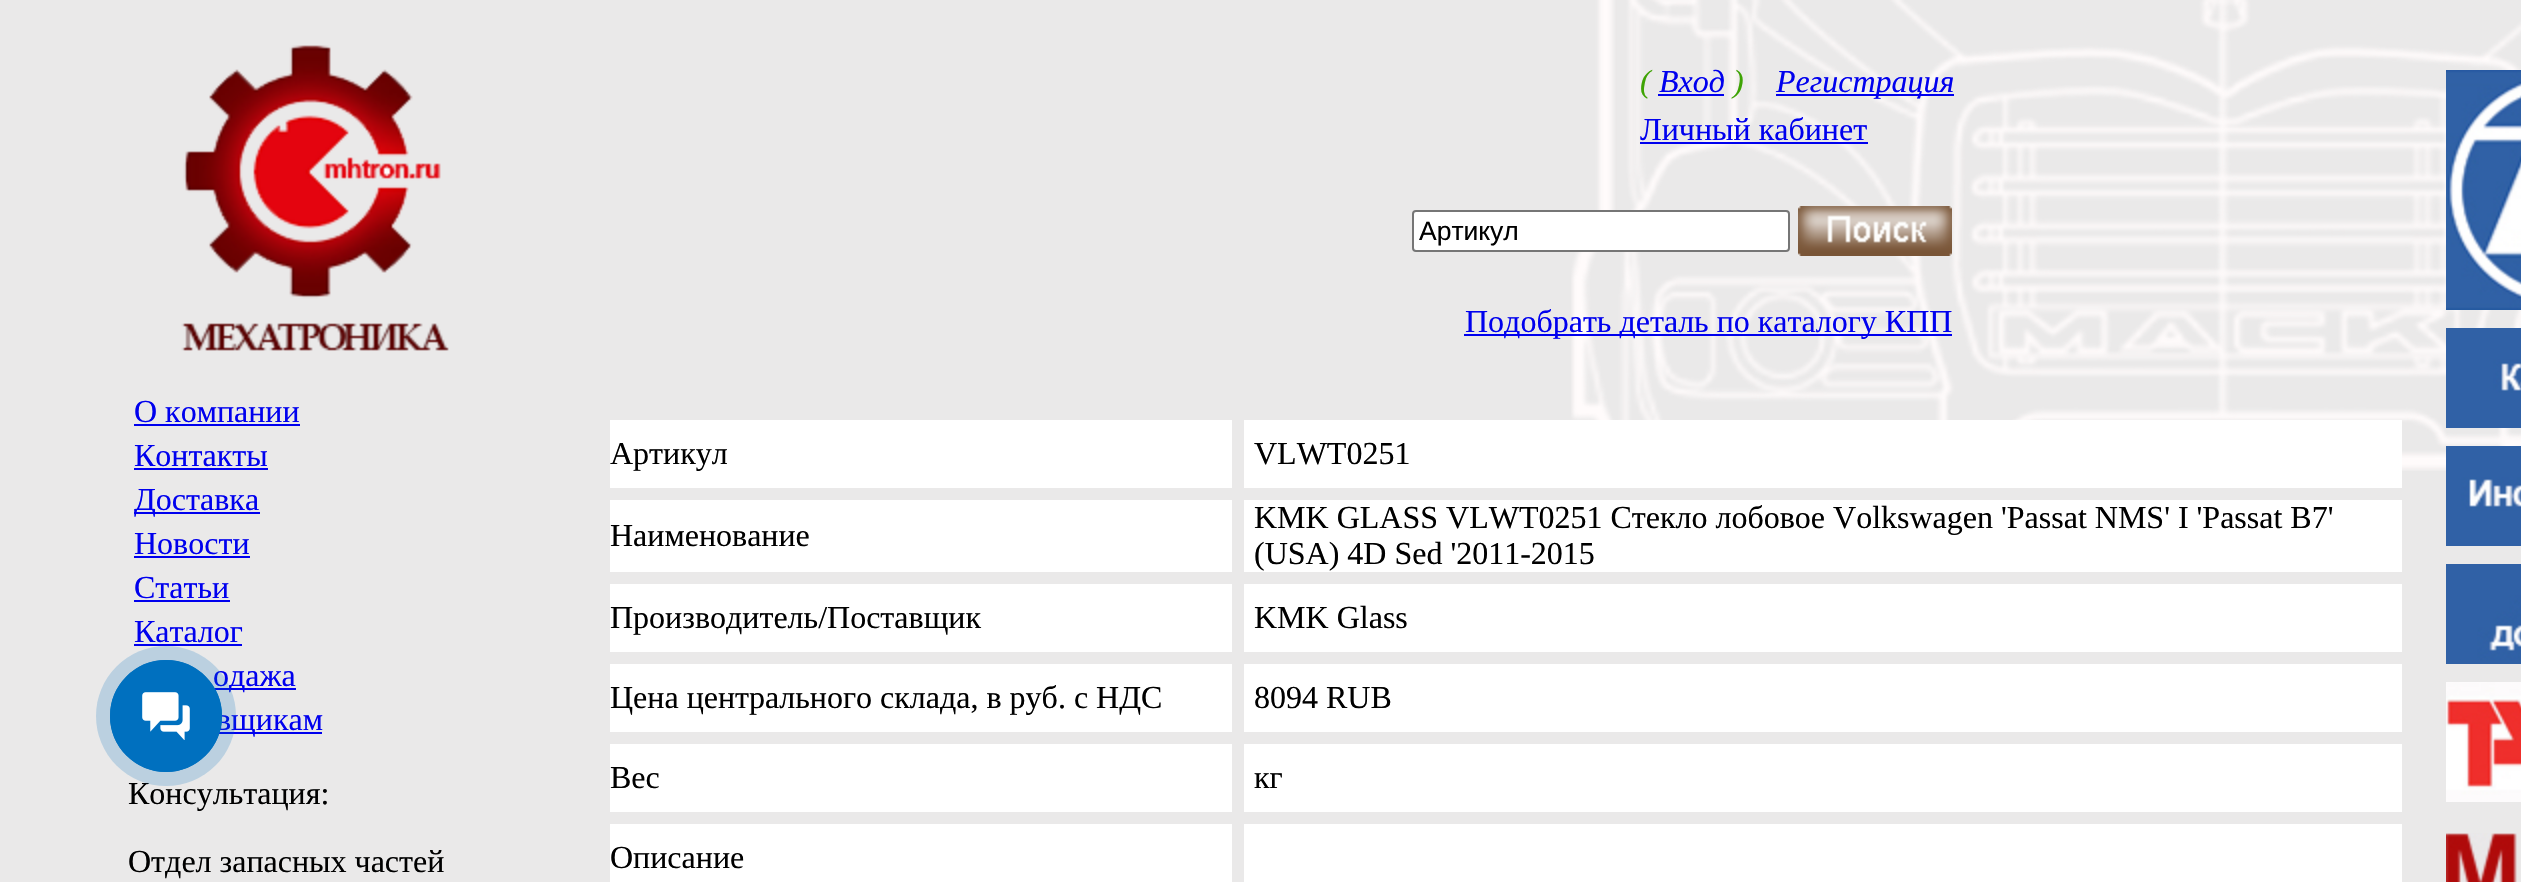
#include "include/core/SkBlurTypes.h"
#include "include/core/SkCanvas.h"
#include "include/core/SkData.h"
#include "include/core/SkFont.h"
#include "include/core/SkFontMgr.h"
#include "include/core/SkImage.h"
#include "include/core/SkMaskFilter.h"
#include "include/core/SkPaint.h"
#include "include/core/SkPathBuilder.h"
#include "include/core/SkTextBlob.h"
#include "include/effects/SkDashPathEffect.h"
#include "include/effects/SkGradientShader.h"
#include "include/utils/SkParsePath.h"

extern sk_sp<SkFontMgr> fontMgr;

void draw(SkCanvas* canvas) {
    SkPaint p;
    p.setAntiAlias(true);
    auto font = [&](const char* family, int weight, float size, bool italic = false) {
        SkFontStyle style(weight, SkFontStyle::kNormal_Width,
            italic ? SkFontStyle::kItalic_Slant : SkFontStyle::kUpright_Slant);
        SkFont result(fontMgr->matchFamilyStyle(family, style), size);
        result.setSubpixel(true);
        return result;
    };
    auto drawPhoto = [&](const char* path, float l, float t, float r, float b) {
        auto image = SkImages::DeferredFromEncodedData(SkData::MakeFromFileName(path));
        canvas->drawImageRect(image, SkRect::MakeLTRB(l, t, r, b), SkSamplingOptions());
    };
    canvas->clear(0xFFEAE9E9);
    drawPhoto("media/1.png", 1571, 0, 2521, 471);
    drawPhoto("media/2.png", 181, 45, 449, 351);
    auto font1 = font("Liberation Serif", 400, 32, true);
    p.setColor(0xFF3EA304);
    canvas->drawString("(", 1640, 92, font1, p);
    p.setColor(0xFF0000EE);
    canvas->drawString("Вход", 1659, 92, font1, p);
    canvas->drawRect(SkRect::MakeLTRB(1658, 94, 1724, 96), p);
    p.setColor(0xFF3EA304);
    canvas->drawString(")", 1733, 92, font1, p);
    p.setColor(0xFF0000EE);
    canvas->drawRect(SkRect::MakeLTRB(1776, 94, 1954, 96), p);
    canvas->drawString("Регистрация", 1776, 92, font1, p);
    auto font2 = font("Liberation Serif", 400, 32);
    canvas->drawString("Личный кабинет", 1640, 140, font2, p);
    canvas->drawRect(SkRect::MakeLTRB(1640, 142, 1868, 144), p);
    drawPhoto("media/3.png", 2446, 70, 2521, 310);
    drawPhoto("media/4.png", 2446, 328, 2521, 428);
    drawPhoto("media/5.png", 2446, 446, 2521, 546);
    drawPhoto("media/6.png", 2446, 564, 2521, 664);
    drawPhoto("media/7.png", 2446, 682, 2521, 802);
    drawPhoto("media/8.png", 2446, 833, 2517, 882);
    p.setColor(0xFFFFFFFF);
    canvas->drawRoundRect(SkRect::MakeLTRB(1413, 211, 1789, 251), 3, 3, p);
    p.setStyle(SkPaint::kStroke_Style);
    p.setStrokeWidth(2);
    p.setColor(0xFF767676);
    canvas->drawRoundRect(SkRect::MakeLTRB(1413, 211, 1789, 251), 3, 3, p);
    auto font3 = font("Liberation Sans", 400, 26.5f);
    p.setStyle(SkPaint::kFill_Style);
    p.setColor(0xFF000000);
    canvas->drawString("Артикул", 1419, 240, font3, p);
    p.setColor(0xFFEFEFEF);
    canvas->drawRect(SkRect::MakeLTRB(1798, 206, 1952, 256), p);
    drawPhoto("media/9.png", 1798, 206, 1952, 256);
    p.setColor(0xFF0000EE);
    canvas->drawRect(SkRect::MakeLTRB(1464, 334, 1952, 336), p);
    canvas->drawString("Подобрать деталь по каталогу КПП", 1465, 332, font2, p);
    canvas->drawString("О компании", 134, 422, font2, p);
    canvas->drawRect(SkRect::MakeLTRB(134, 424, 300, 426), p);
    canvas->drawString("Контакты", 134, 466, font2, p);
    canvas->drawRect(SkRect::MakeLTRB(134, 468, 268, 470), p);
    canvas->drawRect(SkRect::MakeLTRB(134, 512, 260, 514), p);
    canvas->drawString("Доставка", 134, 510, font2, p);
    canvas->drawString("Новости", 134, 554, font2, p);
    canvas->drawRect(SkRect::MakeLTRB(134, 556, 250, 558), p);
    canvas->drawString("Статьи", 134, 598, font2, p);
    canvas->drawRect(SkRect::MakeLTRB(134, 600, 230, 602), p);
    canvas->drawString("Каталог", 134, 642, font2, p);
    canvas->drawRect(SkRect::MakeLTRB(134, 644, 242, 646), p);
    canvas->drawRect(SkRect::MakeLTRB(214, 688, 296, 690), p);
    canvas->drawString("одажа", 213, 686, font2, p);
    canvas->drawRect(SkRect::MakeLTRB(219, 732, 322, 734), p);
    canvas->drawString("вщикам", 216, 730, font2, p);
    p.setColor(0xFF000000);
    canvas->drawString("Консультация:", 128, 804, font2, p);
    canvas->drawString("Отдел запасных частей", 128, 872, font2, p);
    p.setColor(0xFFFFFFFF);
    canvas->drawRect(SkRect::MakeLTRB(610, 420, 1232, 488), p);
    p.setColor(0xFF000000);
    canvas->drawString("Артикул", 610, 464, font2, p);
    p.setColor(0xFFFFFFFF);
    canvas->drawRect(SkRect::MakeLTRB(1244, 420, 2402, 488), p);
    p.setColor(0xFF000000);
    canvas->drawString("VLWT0251", 1254, 464, font2, p);
    p.setColor(0xFFFFFFFF);
    canvas->drawRect(SkRect::MakeLTRB(610, 500, 1232, 572), p);
    p.setColor(0xFF000000);
    canvas->drawString("Наименование", 610, 546, font2, p);
    p.setColor(0xFFFFFFFF);
    canvas->drawRect(SkRect::MakeLTRB(1244, 500, 2402, 572), p);
    p.setColor(0xFF000000);
    canvas->drawString("KMK GLASS VLWT0251 Стекло лобовое Volkswagen 'Passat NMS' I 'Passat B7'", 1254, 528, font2, p);
    canvas->drawString("(USA) 4D Sed '2011-2015", 1254, 564, font2, p);
    p.setColor(0xFFFFFFFF);
    canvas->drawRect(SkRect::MakeLTRB(610, 584, 1232, 652), p);
    p.setColor(0xFF000000);
    canvas->drawString("Производитель/Поставщик", 610, 628, font2, p);
    p.setColor(0xFFFFFFFF);
    canvas->drawRect(SkRect::MakeLTRB(1244, 584, 2402, 652), p);
    p.setColor(0xFF000000);
    canvas->drawString("KMK Glass", 1254, 628, font2, p);
    p.setColor(0xFFFFFFFF);
    canvas->drawRect(SkRect::MakeLTRB(610, 664, 1232, 732), p);
    p.setColor(0xFF000000);
    canvas->drawString("Цена центрального склада, в руб. с НДС", 610, 708, font2, p);
    p.setColor(0xFFFFFFFF);
    canvas->drawRect(SkRect::MakeLTRB(1244, 664, 2402, 732), p);
    p.setColor(0xFF000000);
    canvas->drawString("8094 RUB", 1254, 708, font2, p);
    p.setColor(0xFFFFFFFF);
    canvas->drawRect(SkRect::MakeLTRB(610, 744, 1232, 812), p);
    p.setColor(0xFF000000);
    canvas->drawString("Вес", 610, 788, font2, p);
    p.setColor(0xFFFFFFFF);
    canvas->drawRect(SkRect::MakeLTRB(1244, 744, 2402, 812), p);
    p.setColor(0xFF000000);
    canvas->drawString("кг", 1254, 788, font2, p);
    p.setColor(0xFFFFFFFF);
    canvas->drawRect(SkRect::MakeLTRB(610, 824, 1232, 882), p);
    p.setColor(0xFF000000);
    canvas->drawString("Описание", 610, 868, font2, p);
    p.setColor(0xFFFFFFFF);
    canvas->drawRect(SkRect::MakeLTRB(1244, 824, 2402, 882), p);
    p.setColor(0x330070BF);
    canvas->drawCircle(166, 716, 70, p);
    p.setStyle(SkPaint::kStroke_Style);
    p.setColor(0xFF0070BF);
    canvas->drawCircle(166, 716, 55, p);
    p.setStyle(SkPaint::kFill_Style);
    canvas->drawCircle(166, 716, 56, p);
    drawPhoto("media/10.png", 142, 692, 190, 740);
}
